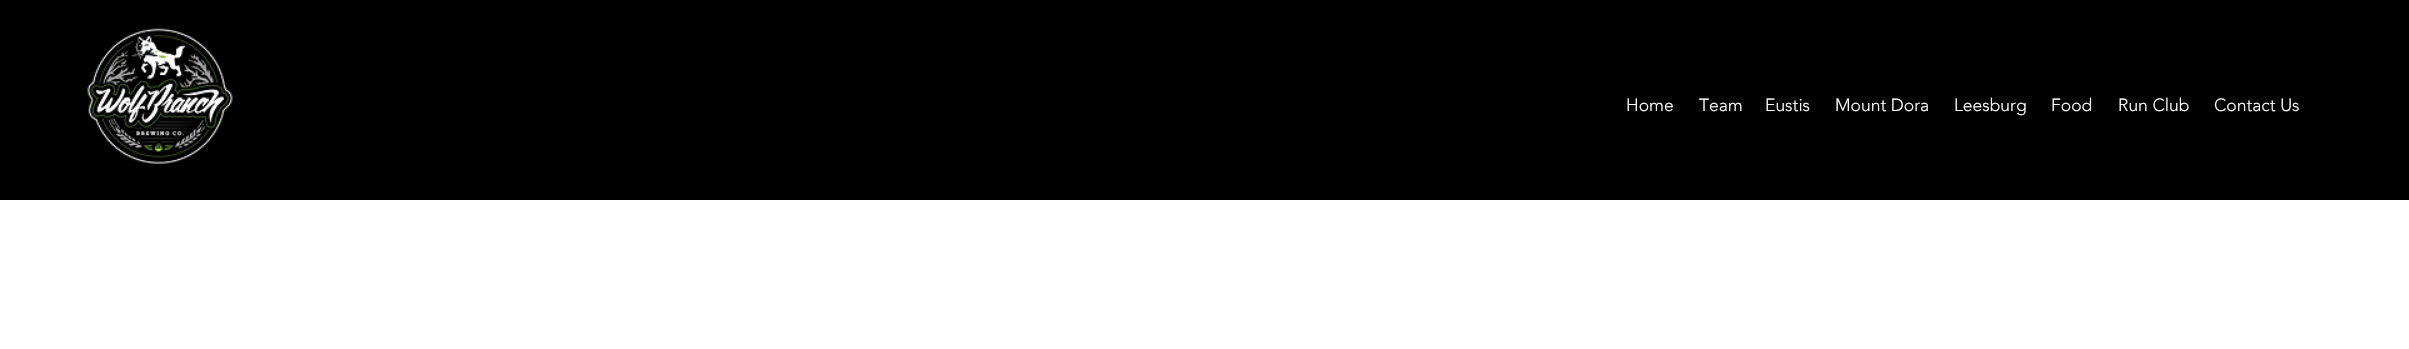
#include "include/core/SkBlurTypes.h"
#include "include/core/SkCanvas.h"
#include "include/core/SkData.h"
#include "include/core/SkFont.h"
#include "include/core/SkFontMgr.h"
#include "include/core/SkImage.h"
#include "include/core/SkMaskFilter.h"
#include "include/core/SkPaint.h"
#include "include/core/SkPathBuilder.h"
#include "include/core/SkTextBlob.h"
#include "include/effects/SkDashPathEffect.h"
#include "include/effects/SkGradientShader.h"
#include "include/utils/SkParsePath.h"

extern sk_sp<SkFontMgr> fontMgr;

void draw(SkCanvas* canvas) {
    SkPaint p;
    p.setAntiAlias(true);
    auto font = [&](const char* family, int weight, float size, bool italic = false) {
        SkFontStyle style(weight, SkFontStyle::kNormal_Width,
            italic ? SkFontStyle::kItalic_Slant : SkFontStyle::kUpright_Slant);
        SkFont result(fontMgr->matchFamilyStyle(family, style), size);
        result.setSubpixel(true);
        return result;
    };
    auto drawPhoto = [&](const char* path, float l, float t, float r, float b) {
        auto image = SkImages::DeferredFromEncodedData(SkData::MakeFromFileName(path));
        canvas->drawImageRect(image, SkRect::MakeLTRB(l, t, r, b), SkSamplingOptions());
    };
    canvas->clear(0xFFFFFFFF);
    p.setColor(0xFF000000);
    canvas->drawRect(SkRect::MakeLTRB(0, 0, 2409, 200), p);
    drawPhoto("media/1.png", 87, 28, 233, 164);
    auto font1 = font("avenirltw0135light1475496", 300, 17.5f);
    p.setColor(0xFFFFFFFF);
    {
        const struct { const char* s; float x, y; } items[] = {
            {"Home", 1626, 111},
            {"Team", 1699, 111},
            {"Eustis", 1765, 111},
            {"Mount Dora", 1835, 111},
            {"Leesburg", 1954, 111},
            {"Food", 2051, 111},
            {"Run Club", 2118, 111},
            {"Contact Us", 2214, 111},
        };
        for (auto [s, x, y] : items) {
            canvas->drawString(s, x, y, font1, p);
        }
    }
}
